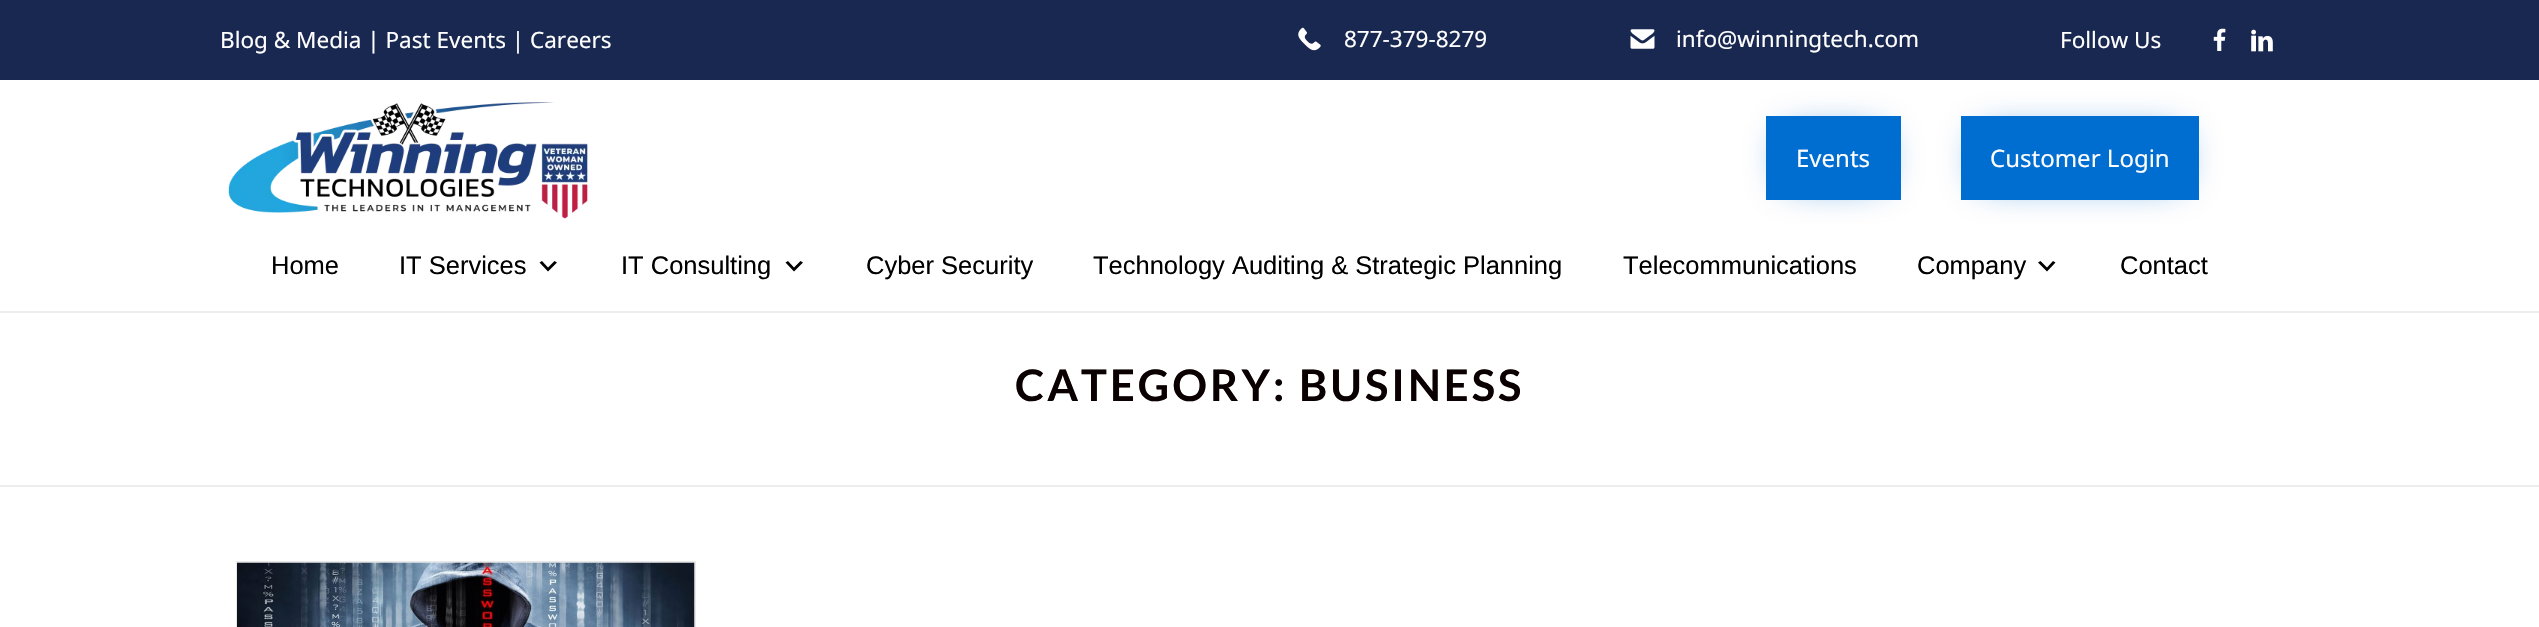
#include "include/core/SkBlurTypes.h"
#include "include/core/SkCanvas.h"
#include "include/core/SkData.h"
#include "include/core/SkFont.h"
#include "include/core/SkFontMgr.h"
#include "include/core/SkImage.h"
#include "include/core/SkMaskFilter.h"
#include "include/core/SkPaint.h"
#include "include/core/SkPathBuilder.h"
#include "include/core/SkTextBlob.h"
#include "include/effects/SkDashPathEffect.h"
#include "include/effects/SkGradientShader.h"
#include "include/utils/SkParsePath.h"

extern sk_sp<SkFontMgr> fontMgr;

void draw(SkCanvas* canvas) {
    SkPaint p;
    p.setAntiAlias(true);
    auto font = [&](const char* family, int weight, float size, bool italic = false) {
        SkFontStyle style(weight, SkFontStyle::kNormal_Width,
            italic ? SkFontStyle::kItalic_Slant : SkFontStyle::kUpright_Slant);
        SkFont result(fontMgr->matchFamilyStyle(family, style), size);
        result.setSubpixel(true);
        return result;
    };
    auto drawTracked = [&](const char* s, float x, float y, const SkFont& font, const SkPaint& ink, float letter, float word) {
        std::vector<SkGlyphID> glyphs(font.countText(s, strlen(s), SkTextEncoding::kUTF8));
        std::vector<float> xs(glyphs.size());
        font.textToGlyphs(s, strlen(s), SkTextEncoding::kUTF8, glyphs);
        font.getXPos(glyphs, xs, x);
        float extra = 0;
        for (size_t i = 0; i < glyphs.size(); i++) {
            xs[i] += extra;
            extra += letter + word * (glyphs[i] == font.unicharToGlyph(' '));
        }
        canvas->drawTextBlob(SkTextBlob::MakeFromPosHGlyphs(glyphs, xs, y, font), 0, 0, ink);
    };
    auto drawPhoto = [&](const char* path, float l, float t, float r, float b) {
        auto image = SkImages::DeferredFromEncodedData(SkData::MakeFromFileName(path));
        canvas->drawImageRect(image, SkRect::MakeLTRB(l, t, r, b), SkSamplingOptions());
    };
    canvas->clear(0xFFFFFFFF);
    p.setColor(0xFFEDEDED);
    canvas->drawRect(SkRect::MakeLTRB(0, 311, 2539, 313), p);
    p.setColor(0xFF006DD1);
    p.setMaskFilter(SkMaskFilter::MakeBlur(kNormal_SkBlurStyle, 19));
    canvas->drawRect(SkRect::MakeLTRB(1787, 137, 1880, 179), p);
    p.setMaskFilter(nullptr);
    p.setMaskFilter(SkMaskFilter::MakeBlur(kNormal_SkBlurStyle, 19));
    canvas->drawRect(SkRect::MakeLTRB(1982, 137, 2178, 179), p);
    p.setMaskFilter(nullptr);
    p.setColor(0xFF192850);
    canvas->drawRect(SkRect::MakeLTRB(0, 0, 2539, 80), p);
    auto font1 = font("Noto Sans", 400, 22.5f);
    p.setColor(0xFFFFFFFF);
    canvas->drawString("Blog & Media | Past Events | Careers", 220, 48, font1, p);
    drawPhoto("media/1.png", 1298, 27, 1321, 51);
    canvas->drawString("877-379-8279", 1344, 47, font1, p);
    drawPhoto("media/2.png", 1630, 29, 1655, 49);
    canvas->drawString("info@winningtech.com", 1676, 47, font1, p);
    canvas->drawString("Follow Us", 2060, 48, font1, p);
    drawPhoto("media/3.png", 2213, 28, 2226, 51);
    drawPhoto("media/4.png", 2251, 29, 2273, 52);
    drawPhoto("media/5.png", 228, 102, 588, 219);
    p.setColor(0xFF006DD1);
    canvas->drawRect(SkRect::MakeLTRB(1766, 116, 1901, 200), p);
    auto font2 = font("Noto Sans", 400, 24);
    p.setColor(0xFFFFFFFF);
    canvas->drawString("Events", 1796, 167, font2, p);
    p.setColor(0xFF006DD1);
    canvas->drawRect(SkRect::MakeLTRB(1961, 116, 2199, 200), p);
    p.setColor(0xFFFFFFFF);
    canvas->drawString("Customer Login", 1990, 167, font2, p);
    auto font3 = font("Liberation Sans", 400, 25.5f);
    p.setColor(0xFF000000);
    canvas->drawString("Home", 271, 274, font3, p);
    canvas->drawString("IT Services", 399, 274, font3, p);
    canvas->drawPath(SkPathBuilder().moveTo(542, 261).lineTo(548, 267.5f).lineTo(554.5f, 261).lineTo(557, 262.5f).lineTo(548, 271.5f).lineTo(539.5f, 262.5f).close().detach(), p);
    canvas->drawString("IT Consulting", 621, 274, font3, p);
    canvas->drawPath(SkPathBuilder().moveTo(788, 261).lineTo(794, 267.5f).lineTo(800.5f, 261).lineTo(803, 262.5f).lineTo(794, 271.5f).lineTo(785.5f, 262.5f).close().detach(), p);
    {
        const struct { const char* s; float x, y; } items[] = {
            {"Cyber Security", 866, 274},
            {"Technology Auditing & Strategic Planning", 1093, 274},
            {"Telecommunications", 1623, 274},
            {"Company", 1917, 274},
        };
        for (auto [s, x, y] : items) {
            canvas->drawString(s, x, y, font3, p);
        }
    }
    canvas->drawPath(SkPathBuilder().moveTo(2040.5f, 261).lineTo(2047, 267.5f).lineTo(2053, 261).lineTo(2055.5f, 262.5f).lineTo(2047, 271.5f).lineTo(2038, 262.5f).close().detach(), p);
    canvas->drawString("Contact", 2120, 274, font3, p);
    p.setColor(0xFFEDEDED);
    canvas->drawRect(SkRect::MakeLTRB(0, 485, 2539, 487), p);
    auto font4 = font("Lato", 700, 43.5f);
    p.setColor(0xFF0A0002);
    drawTracked("CATEGORY: BUSINESS", 1015, 401, font4, p, 3, 0);
    p.setStyle(SkPaint::kStroke_Style);
    p.setStrokeWidth(2);
    p.setColor(0xFFE9E9EA);
    canvas->drawRect(SkRect::MakeLTRB(237, 562, 695, 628), p);
    drawPhoto("media/6.png", 237, 562, 695, 627);
}
